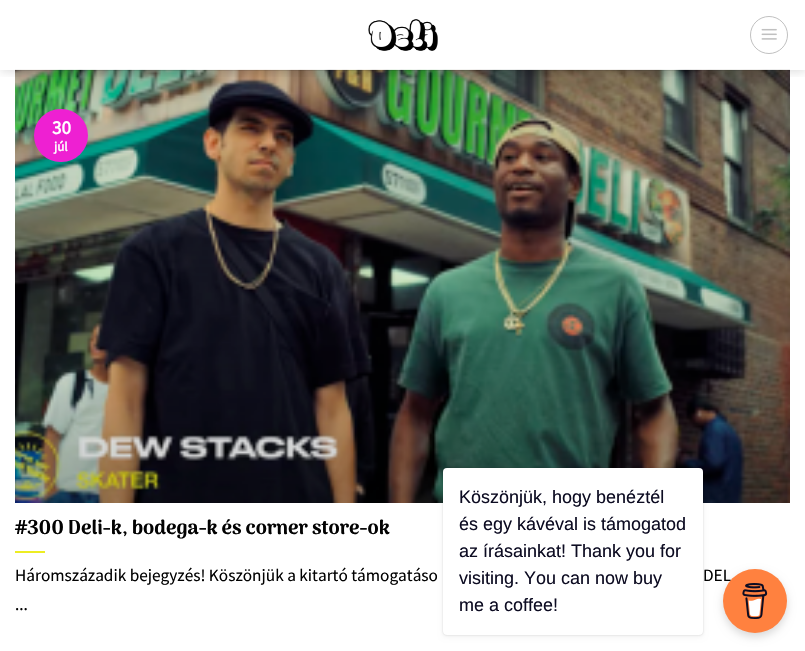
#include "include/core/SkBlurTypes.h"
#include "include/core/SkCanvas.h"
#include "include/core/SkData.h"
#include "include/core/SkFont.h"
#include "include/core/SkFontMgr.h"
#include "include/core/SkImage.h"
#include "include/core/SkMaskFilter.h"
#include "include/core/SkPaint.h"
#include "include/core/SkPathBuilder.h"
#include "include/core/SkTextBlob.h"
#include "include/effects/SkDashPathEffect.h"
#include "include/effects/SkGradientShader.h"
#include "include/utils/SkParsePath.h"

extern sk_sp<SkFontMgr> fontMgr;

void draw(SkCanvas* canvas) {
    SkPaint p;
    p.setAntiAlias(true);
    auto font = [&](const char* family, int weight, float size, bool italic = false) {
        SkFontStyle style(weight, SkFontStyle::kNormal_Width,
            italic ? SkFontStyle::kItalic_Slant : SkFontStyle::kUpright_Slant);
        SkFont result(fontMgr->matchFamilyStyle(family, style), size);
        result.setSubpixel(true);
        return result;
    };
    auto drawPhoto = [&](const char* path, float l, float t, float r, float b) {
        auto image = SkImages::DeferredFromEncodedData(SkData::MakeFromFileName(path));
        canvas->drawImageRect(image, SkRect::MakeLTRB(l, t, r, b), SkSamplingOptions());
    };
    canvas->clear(0xFFFFFFFF);
    drawPhoto("media/3.png", 15, 69, 790, 503);
    canvas->save();
    canvas->clipRect(SkRect::MakeLTRB(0, 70, 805, 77));
    p.setColor(0x26000000);
    p.setMaskFilter(SkMaskFilter::MakeBlur(kNormal_SkBlurStyle, 5));
    canvas->drawRect(SkRect::MakeLTRB(1, 1, 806, 71), p);
    p.setMaskFilter(nullptr);
    canvas->restore();
    drawPhoto("media/1.png", 368, 19, 438, 51);
    p.setStyle(SkPaint::kStroke_Style);
    p.setStrokeWidth(1);
    p.setColor(0xFFC0C0C0);
    canvas->drawCircle(769, 35, 18.5f, p);
    drawPhoto("media/2.png", 761, 28, 777, 40);
    p.setStyle(SkPaint::kFill_Style);
    p.setColor(0x1A020202);
    canvas->drawRect(SkRect::MakeLTRB(15, 70, 790, 71), p);
    p.setColor(0xE6FFFFFF);
    canvas->drawRect(SkRect::MakeLTRB(15, 69, 790, 70), p);
    p.setColor(0xFFEE20D2);
    canvas->drawRoundRect(SkRect::MakeLTRB(34, 109, 88, 162), 26.5f, 26.5f, p);
    auto font1 = font("Source Sans Pro", 700, 19);
    p.setColor(0xFFFFFFFF);
    canvas->drawString("30", 52, 134, font1, p);
    auto font2 = font("Source Sans Pro", 700, 13);
    canvas->drawString("júl", 54, 151, font2, p);
    auto font3 = font("Arima", 700, 19.9f);
    p.setColor(0xFF020202);
    canvas->drawString("#300 Deli-k, bodega-k és corner store-ok", 15, 534, font3, p);
    p.setColor(0xFFEDED23);
    canvas->drawRect(SkRect::MakeLTRB(15, 551, 45, 553), p);
    auto font4 = font("Source Sans Pro", 400, 17.25f);
    p.setColor(0xFF020202);
    {
        const struct { const char* s; float x, y; } items[] = {
            {"Háromszázadik bejegyzés! Köszönjük a kitartó támogatáso", 15, 581},
            {"DEL", 703, 581},
            {"...", 15, 610},
        };
        for (auto [s, x, y] : items) {
            canvas->drawString(s, x, y, font4, p);
        }
    }
    p.setStyle(SkPaint::kStroke_Style);
    p.setStrokeWidth(2);
    canvas->drawCircle(759.5f, 607.5f, 22.5f, p);
    p.setStyle(SkPaint::kFill_Style);
    p.setColor(0x26000000);
    p.setMaskFilter(SkMaskFilter::MakeBlur(kNormal_SkBlurStyle, 1));
    canvas->drawRoundRect(SkRect::MakeLTRB(443, 468, 703, 635), 4, 4, p);
    p.setMaskFilter(nullptr);
    p.setColor(0x0D000000);
    p.setMaskFilter(SkMaskFilter::MakeBlur(kNormal_SkBlurStyle, 2.5f));
    canvas->drawRoundRect(SkRect::MakeLTRB(443, 470, 703, 637), 4, 4, p);
    p.setMaskFilter(nullptr);
    p.setColor(0xFFFFFFFF);
    canvas->drawRoundRect(SkRect::MakeLTRB(443, 468, 703, 635), 4, 4, p);
    auto font5 = font("Liberation Sans", 400, 18);
    p.setColor(0xFF0D0C22);
    {
        const struct { const char* s; float x, y; } items[] = {
            {"Köszönjük, hogy benéztél", 459, 503},
            {"és egy kávéval is támogatod", 459, 530},
            {"az írásainkat! Thank you for", 459, 557},
            {"visiting. You can now buy", 459, 584},
            {"me a coffee!", 459, 611},
        };
        for (auto [s, x, y] : items) {
            canvas->drawString(s, x, y, font5, p);
        }
    }
    p.setColor(0x26000000);
    p.setMaskFilter(SkMaskFilter::MakeBlur(kNormal_SkBlurStyle, 4));
    canvas->drawRoundRect(SkRect::MakeLTRB(723, 573, 787, 637), 32, 32, p);
    p.setMaskFilter(nullptr);
    p.setColor(0xFFFF813F);
    canvas->drawCircle(755, 601, 32, p);
    drawPhoto("media/4.png", 742, 583, 768, 619);
}
